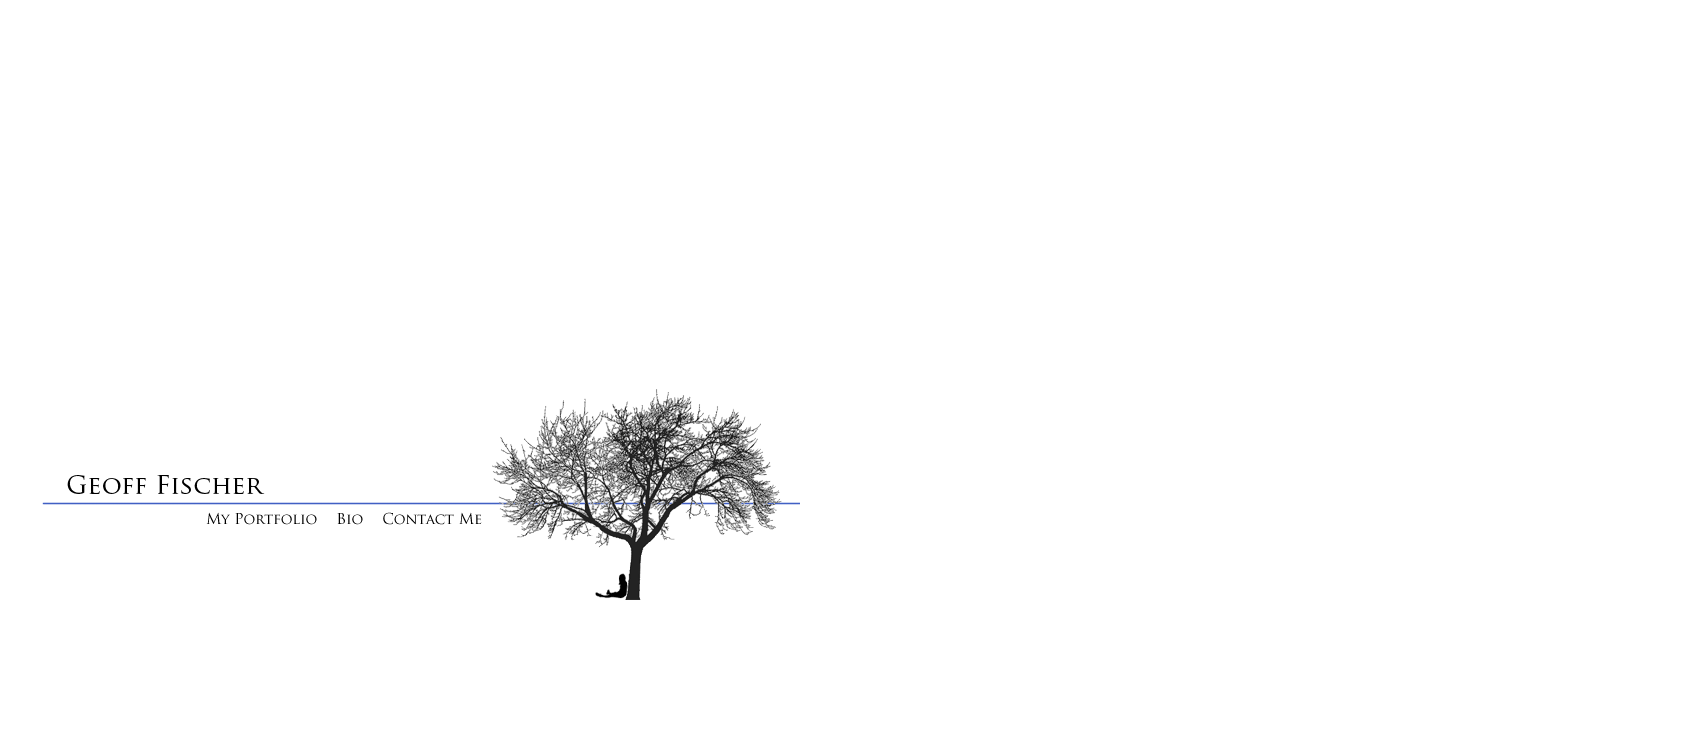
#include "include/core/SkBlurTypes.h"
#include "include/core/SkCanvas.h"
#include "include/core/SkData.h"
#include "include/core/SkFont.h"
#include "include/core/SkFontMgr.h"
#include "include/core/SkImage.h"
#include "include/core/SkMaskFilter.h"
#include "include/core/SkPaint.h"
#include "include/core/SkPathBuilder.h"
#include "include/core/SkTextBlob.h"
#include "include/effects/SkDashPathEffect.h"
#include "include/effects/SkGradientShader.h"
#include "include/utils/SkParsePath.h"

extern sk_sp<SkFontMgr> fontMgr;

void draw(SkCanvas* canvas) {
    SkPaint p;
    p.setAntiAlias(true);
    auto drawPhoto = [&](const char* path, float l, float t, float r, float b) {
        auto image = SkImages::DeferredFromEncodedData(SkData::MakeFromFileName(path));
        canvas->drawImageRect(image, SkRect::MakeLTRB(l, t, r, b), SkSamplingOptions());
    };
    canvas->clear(0xFFFFFFFF);
    drawPhoto("media/1.png", 42, 475, 113, 505);
    drawPhoto("media/2.png", 113, 475, 197, 505);
    drawPhoto("media/3.png", 197, 478, 326, 525);
    drawPhoto("media/4.png", 326, 502, 373, 525);
    drawPhoto("media/5.png", 373, 502, 487, 525);
    drawPhoto("media/6.png", 487, 389, 800, 600);
}
